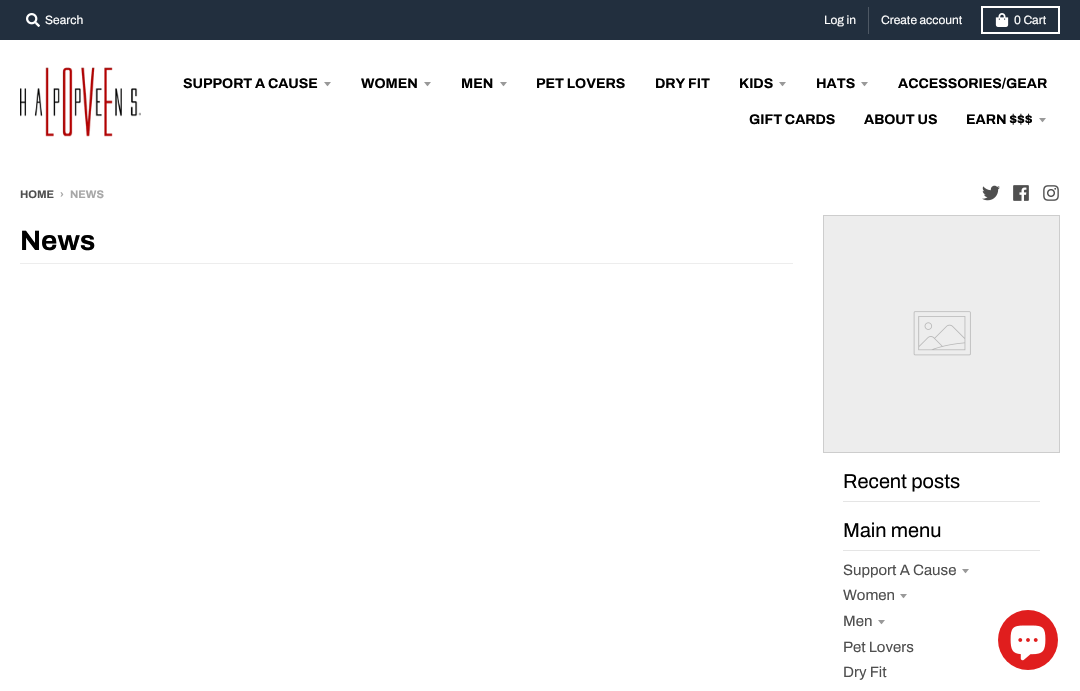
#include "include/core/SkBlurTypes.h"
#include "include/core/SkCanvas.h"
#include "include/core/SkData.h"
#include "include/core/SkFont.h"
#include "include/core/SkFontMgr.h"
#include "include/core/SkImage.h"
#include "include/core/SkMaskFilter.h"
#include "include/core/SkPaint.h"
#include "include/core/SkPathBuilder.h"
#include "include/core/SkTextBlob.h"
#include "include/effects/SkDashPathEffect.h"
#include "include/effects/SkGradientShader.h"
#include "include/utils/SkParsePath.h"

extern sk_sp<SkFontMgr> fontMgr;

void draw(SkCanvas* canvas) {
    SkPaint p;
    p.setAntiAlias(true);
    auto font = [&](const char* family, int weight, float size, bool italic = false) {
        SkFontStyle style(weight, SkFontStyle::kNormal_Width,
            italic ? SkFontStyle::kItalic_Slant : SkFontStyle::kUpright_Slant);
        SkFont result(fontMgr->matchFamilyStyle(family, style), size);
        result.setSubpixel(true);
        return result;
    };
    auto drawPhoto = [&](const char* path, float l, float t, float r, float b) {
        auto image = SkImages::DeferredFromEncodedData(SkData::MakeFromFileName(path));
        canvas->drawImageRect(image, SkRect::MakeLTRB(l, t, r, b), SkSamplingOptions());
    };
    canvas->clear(0xFFFFFFFF);
    p.setColor(0xFF222F3E);
    canvas->drawRect(SkRect::MakeLTRB(0, 0, 1080, 40), p);
    drawPhoto("media/1.png", 26, 13, 40, 27);
    auto font1 = font("Archivo", 400, 12);
    p.setColor(0xFFFFFFFF);
    canvas->drawString("Search", 45, 24, font1, p);
    p.setColor(0xFF4E5864);
    canvas->drawRect(SkRect::MakeLTRB(868, 7, 869, 34), p);
    p.setColor(0xFFFFFFFF);
    canvas->drawString("Log in", 824, 24, font1, p);
    canvas->drawString("Create account", 881, 24, font1, p);
    p.setStyle(SkPaint::kStroke_Style);
    p.setStrokeWidth(2);
    canvas->drawRect(SkRect::MakeLTRB(982, 7, 1059, 33), p);
    drawPhoto("media/2.png", 995, 13, 1009, 27);
    p.setStyle(SkPaint::kFill_Style);
    canvas->drawString("0 Cart", 1014, 24, font1, p);
    drawPhoto("media/3.png", 20, 67, 141, 137);
    auto font2 = font("Archivo", 700, 14);
    p.setColor(0xFF000000);
    canvas->drawString("SUPPORT A CAUSE", 183, 88, font2, p);
    p.setColor(0xFF999999);
    canvas->drawPath(SkPathBuilder().moveTo(324, 82).cubicTo(328.5f, 87.5f, 326.5f, 87.5f, 331, 82).close().detach(), p);
    p.setColor(0xFF000000);
    canvas->drawString("WOMEN", 361, 88, font2, p);
    p.setColor(0xFF999999);
    canvas->drawPath(SkPathBuilder().moveTo(424, 82).cubicTo(428.5f, 87.5f, 426.5f, 87.5f, 431, 82).close().detach(), p);
    p.setColor(0xFF000000);
    canvas->drawString("MEN", 461, 88, font2, p);
    p.setColor(0xFF999999);
    canvas->drawPath(SkPathBuilder().moveTo(500, 82).cubicTo(504.5f, 87.5f, 502.5f, 87.5f, 507, 82).close().detach(), p);
    p.setColor(0xFF000000);
    {
        const struct { const char* s; float x, y; } items[] = {
            {"PET LOVERS", 536, 88},
            {"DRY FIT", 655, 88},
            {"KIDS", 739, 88},
        };
        for (auto [s, x, y] : items) {
            canvas->drawString(s, x, y, font2, p);
        }
    }
    p.setColor(0xFF999999);
    canvas->drawPath(SkPathBuilder().moveTo(779, 82).cubicTo(783.5f, 87.5f, 781.5f, 87.5f, 786, 82).close().detach(), p);
    p.setColor(0xFF000000);
    canvas->drawString("HATS", 816, 88, font2, p);
    p.setColor(0xFF999999);
    canvas->drawPath(SkPathBuilder().moveTo(861, 82).cubicTo(865.5f, 87.5f, 863.5f, 87.5f, 868, 82).close().detach(), p);
    p.setColor(0xFF000000);
    {
        const struct { const char* s; float x, y; } items[] = {
            {"ACCESSORIES/GEAR", 898, 88},
            {"GIFT CARDS", 749, 124},
            {"ABOUT US", 864, 124},
            {"EARN $$$", 966, 124},
        };
        for (auto [s, x, y] : items) {
            canvas->drawString(s, x, y, font2, p);
        }
    }
    p.setColor(0xFF999999);
    canvas->drawPath(SkPathBuilder().moveTo(1039, 118).cubicTo(1043.5f, 123.5f, 1041.5f, 123.5f, 1046, 118).close().detach(), p);
    auto font3 = font("Archivo", 700, 11);
    p.setColor(0xFF4F4F4F);
    canvas->drawString("HOME", 20, 198, font3, p);
    p.setColor(0xFFA7A7A7);
    canvas->drawString("›", 60, 198, font3, p);
    canvas->drawString("NEWS", 70, 198, font3, p);
    drawPhoto("media/4.png", 982, 185, 1000, 201);
    drawPhoto("media/5.png", 1013, 185, 1029, 201);
    drawPhoto("media/6.png", 1043, 185, 1059, 201);
    p.setColor(0xFFEDEDED);
    canvas->drawRect(SkRect::MakeLTRB(20, 263, 793, 264), p);
    auto font4 = font("Archivo", 700, 28);
    p.setColor(0xFF000000);
    canvas->drawString("News", 20, 250, font4, p);
    p.setColor(0xFFEDEDED);
    canvas->drawRect(SkRect::MakeLTRB(823.5f, 215.5f, 1059.5f, 452.5f), p);
    p.setStyle(SkPaint::kStroke_Style);
    p.setStrokeWidth(1);
    p.setColor(0xFFCDCDCD);
    canvas->drawRect(SkRect::MakeLTRB(823.5f, 215.5f, 1059.5f, 452.5f), p);
    drawPhoto("media/7.png", 913, 311, 971, 356);
    p.setStyle(SkPaint::kFill_Style);
    p.setColor(0xFFE5E5E5);
    canvas->drawRect(SkRect::MakeLTRB(843, 501, 1040, 502), p);
    auto font5 = font("Archivo", 400, 20);
    p.setColor(0xFF000000);
    canvas->drawString("Recent posts", 843, 488, font5, p);
    p.setColor(0xFFE5E5E5);
    canvas->drawRect(SkRect::MakeLTRB(843, 550, 1040, 551), p);
    p.setColor(0xFF000000);
    canvas->drawString("Main menu", 843, 537, font5, p);
    auto font6 = font("Archivo", 400, 15);
    p.setColor(0xFF4F4F4F);
    canvas->drawString("Support A Cause", 843, 575, font6, p);
    p.setColor(0xFF999999);
    canvas->drawPath(SkPathBuilder().moveTo(962, 569).cubicTo(966.5f, 574.5f, 964.5f, 574.5f, 969, 569).close().detach(), p);
    p.setColor(0xFF4F4F4F);
    canvas->drawString("Women", 843, 600, font6, p);
    p.setColor(0xFF999999);
    canvas->drawPath(SkPathBuilder().moveTo(900, 594).cubicTo(904.5f, 599.5f, 902.5f, 599.5f, 907, 594).close().detach(), p);
    p.setColor(0xFF4F4F4F);
    canvas->drawString("Men", 843, 626, font6, p);
    p.setColor(0xFF999999);
    canvas->drawPath(SkPathBuilder().moveTo(878, 620).cubicTo(882.5f, 625.5f, 880.5f, 625.5f, 885, 620).close().detach(), p);
    p.setColor(0xFF4F4F4F);
    canvas->drawString("Pet Lovers", 843, 652, font6, p);
    canvas->drawString("Dry Fit", 843, 677, font6, p);
    p.setColor(0xFFE01E1E);
    canvas->drawCircle(1028, 640, 30, p);
    drawPhoto("media/8.png", 1010, 625, 1046, 661);
}
